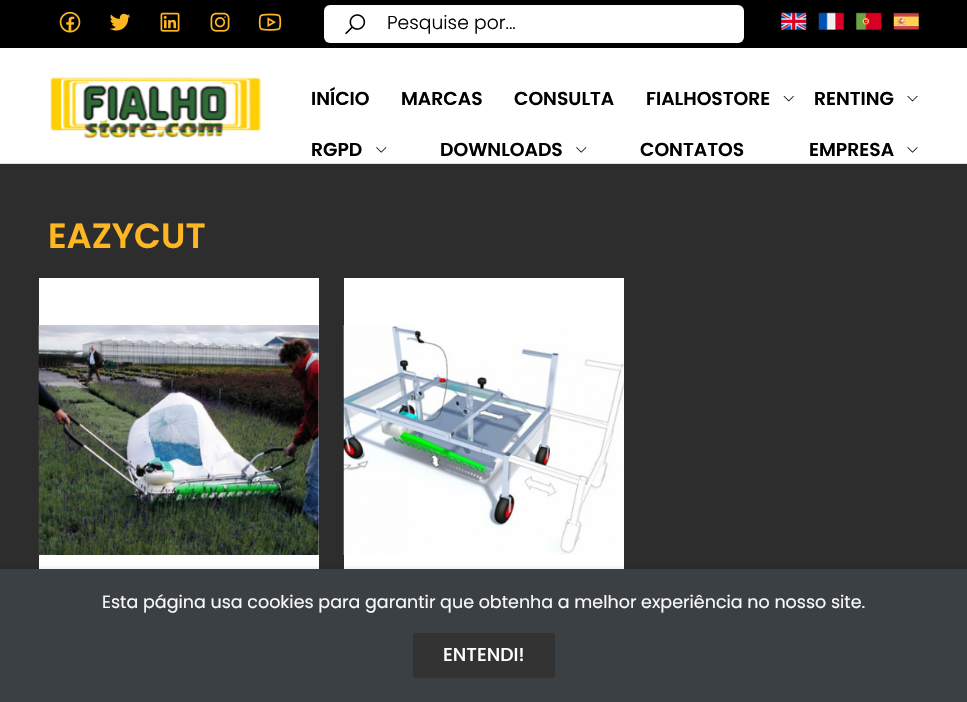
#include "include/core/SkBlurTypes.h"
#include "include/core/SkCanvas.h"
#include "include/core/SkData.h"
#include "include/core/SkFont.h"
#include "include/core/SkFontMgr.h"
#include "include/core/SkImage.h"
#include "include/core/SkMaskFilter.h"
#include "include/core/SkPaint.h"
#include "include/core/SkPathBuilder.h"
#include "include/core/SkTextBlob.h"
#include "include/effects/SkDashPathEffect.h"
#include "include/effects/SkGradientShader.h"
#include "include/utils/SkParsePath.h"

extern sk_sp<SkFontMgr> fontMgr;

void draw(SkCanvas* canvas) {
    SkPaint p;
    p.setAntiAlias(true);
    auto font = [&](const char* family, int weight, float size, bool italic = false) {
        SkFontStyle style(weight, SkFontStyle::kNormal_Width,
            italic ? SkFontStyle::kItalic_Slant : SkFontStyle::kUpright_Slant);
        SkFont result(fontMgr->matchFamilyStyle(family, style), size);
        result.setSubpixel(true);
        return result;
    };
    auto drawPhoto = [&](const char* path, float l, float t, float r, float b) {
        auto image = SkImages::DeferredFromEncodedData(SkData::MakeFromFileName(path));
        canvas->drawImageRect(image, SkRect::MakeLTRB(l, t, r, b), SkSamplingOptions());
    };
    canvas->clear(0xFF2D2D2D);
    p.setColor(0xFF000000);
    canvas->drawRect(SkRect::MakeLTRB(0, 0, 967, 48), p);
    drawPhoto("media/1.png", 59, 11, 81, 33);
    drawPhoto("media/2.png", 109, 13, 131, 31);
    drawPhoto("media/3.png", 160, 12, 180, 32);
    drawPhoto("media/4.png", 210, 12, 230, 32);
    drawPhoto("media/5.png", 258, 13, 282, 31);
    p.setColor(0xFFFFFFFF);
    canvas->drawRoundRect(SkRect::MakeLTRB(324, 5, 744, 43), 6, 6, p);
    drawPhoto("media/6.png", 345, 14, 366, 35);
    auto font1 = font("Poppins", 300, 18.75f);
    p.setColor(0xFF000000);
    canvas->drawString("Pesquise por...", 387, 29, font1, p);
    drawPhoto("media/7.png", 781, 12, 807, 30);
    drawPhoto("media/8.png", 818, 12, 844, 30);
    drawPhoto("media/9.png", 856, 12, 882, 30);
    drawPhoto("media/10.png", 893, 12, 919, 30);
    p.setColor(0xFFFFFFFF);
    canvas->drawRect(SkRect::MakeLTRB(0, 48, 967, 163), p);
    p.setColor(0xFFE1E1E1);
    canvas->drawRect(SkRect::MakeLTRB(0, 163, 967, 164), p);
    drawPhoto("media/11.png", 50, 77, 261, 139);
    auto font2 = font("Poppins", 600, 18.75f);
    p.setColor(0xFF000000);
    {
        const struct { const char* s; float x, y; } items[] = {
            {"INÍCIO", 311, 105},
            {"MARCAS", 401, 105},
            {"CONSULTA", 514, 105},
            {"FIALHOSTORE", 646, 105},
        };
        for (auto [s, x, y] : items) {
            canvas->drawString(s, x, y, font2, p);
        }
    }
    drawPhoto("media/12.png", 783, 95, 794, 102);
    canvas->drawString("RENTING", 814, 105, font2, p);
    drawPhoto("media/13.png", 907, 95, 918, 102);
    canvas->drawString("RGPD", 311, 156, font2, p);
    drawPhoto("media/14.png", 376, 147, 387, 153);
    canvas->drawString("DOWNLOADS", 440, 156, font2, p);
    drawPhoto("media/14.png", 576, 147, 587, 153);
    canvas->drawString("CONTATOS", 640, 156, font2, p);
    canvas->drawString("EMPRESA", 809, 156, font2, p);
    drawPhoto("media/15.png", 907, 147, 918, 153);
    auto font3 = font("Poppins", 600, 35);
    p.setColor(0xFFFEB722);
    canvas->drawString("EAZYCUT", 48, 248, font3, p);
    p.setColor(0xFFFFFFFF);
    canvas->drawRect(SkRect::MakeLTRB(39, 278, 319, 569), p);
    drawPhoto("media/16.png", 38, 325, 319, 555);
    canvas->drawRect(SkRect::MakeLTRB(344, 278, 624, 569), p);
    drawPhoto("media/17.png", 343, 325, 624, 555);
    p.setColor(0x1A000000);
    p.setMaskFilter(SkMaskFilter::MakeBlur(kNormal_SkBlurStyle, 2));
    canvas->drawRect(SkRect::MakeLTRB(0, 568, 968, 701), p);
    p.setMaskFilter(nullptr);
    p.setColor(0xFF3B4045);
    canvas->drawRect(SkRect::MakeLTRB(0, 569, 967, 702), p);
    auto font4 = font("Poppins", 400, 17.5f);
    p.setColor(0xFFF9F9F9);
    canvas->drawString("Esta página usa cookies para garantir que obtenha a melhor experiência no nosso site.", 102, 608, font4, p);
    p.setColor(0xFF333333);
    canvas->drawRoundRect(SkRect::MakeLTRB(413, 633, 555, 678), 2.5f, 2.5f, p);
    auto font5 = font("Poppins", 500, 18.75f);
    p.setColor(0xFFFFFFFF);
    canvas->drawString("ENTENDI!", 443, 661, font5, p);
}
